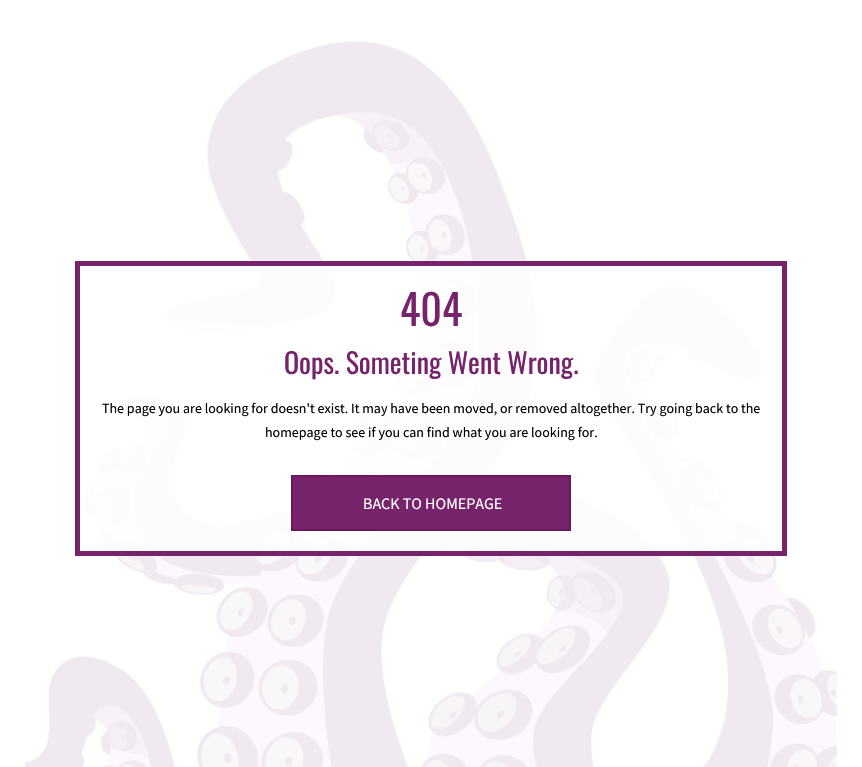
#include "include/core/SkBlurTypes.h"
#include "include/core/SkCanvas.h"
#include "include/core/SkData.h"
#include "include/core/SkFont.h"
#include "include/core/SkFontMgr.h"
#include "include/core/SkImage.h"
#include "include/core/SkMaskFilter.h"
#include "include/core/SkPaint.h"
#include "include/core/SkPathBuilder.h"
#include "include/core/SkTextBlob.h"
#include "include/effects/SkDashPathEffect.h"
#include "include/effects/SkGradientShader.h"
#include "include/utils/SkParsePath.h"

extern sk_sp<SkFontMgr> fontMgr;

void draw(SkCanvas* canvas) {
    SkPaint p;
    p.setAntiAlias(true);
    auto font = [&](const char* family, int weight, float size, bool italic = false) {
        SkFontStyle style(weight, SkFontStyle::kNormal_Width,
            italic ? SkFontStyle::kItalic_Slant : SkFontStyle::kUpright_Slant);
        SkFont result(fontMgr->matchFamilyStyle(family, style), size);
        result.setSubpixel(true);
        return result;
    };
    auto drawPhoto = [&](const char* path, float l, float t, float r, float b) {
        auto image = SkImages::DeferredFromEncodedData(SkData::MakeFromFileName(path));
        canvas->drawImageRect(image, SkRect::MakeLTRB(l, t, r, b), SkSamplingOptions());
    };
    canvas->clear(0xFFFFFFFF);
    drawPhoto("media/1.png", 25, 41, 837, 767);
    p.setColor(0xCCFFFFFF);
    canvas->drawRect(SkRect::MakeLTRB(84, 266, 773, 551), p);
    p.setStyle(SkPaint::kStroke_Style);
    p.setStrokeWidth(5);
    p.setColor(0xFF76236C);
    canvas->drawRect(SkRect::MakeLTRB(77.5f, 263.5f, 784.5f, 553.5f), p);
    auto font1 = font("Oswald", 400, 42);
    p.setStyle(SkPaint::kFill_Style);
    canvas->drawString("404", 400, 326, font1, p);
    auto font2 = font("Oswald", 400, 28);
    canvas->drawString("Oops. Someting Went Wrong.", 284, 374, font2, p);
    auto font3 = font("Source Sans Pro", 400, 14);
    p.setColor(0xFF000000);
    canvas->drawString("The page you are looking for doesn't exist. It may have been moved, or removed altogether. Try going back to the", 102, 413, font3, p);
    canvas->drawString("homepage to see if you can find what you are looking for.", 265, 437, font3, p);
    p.setColor(0xFF76236C);
    canvas->drawRect(SkRect::MakeLTRB(292, 476, 570, 530), p);
    p.setStyle(SkPaint::kStroke_Style);
    p.setStrokeWidth(2);
    p.setColor(0xFF6A1760);
    canvas->drawRect(SkRect::MakeLTRB(292, 476, 570, 530), p);
    auto font4 = font("Source Sans Pro", 400, 16);
    p.setStyle(SkPaint::kFill_Style);
    p.setColor(0xFFFFFFFF);
    canvas->drawString("BACK TO HOMEPAGE", 363, 509, font4, p);
}
